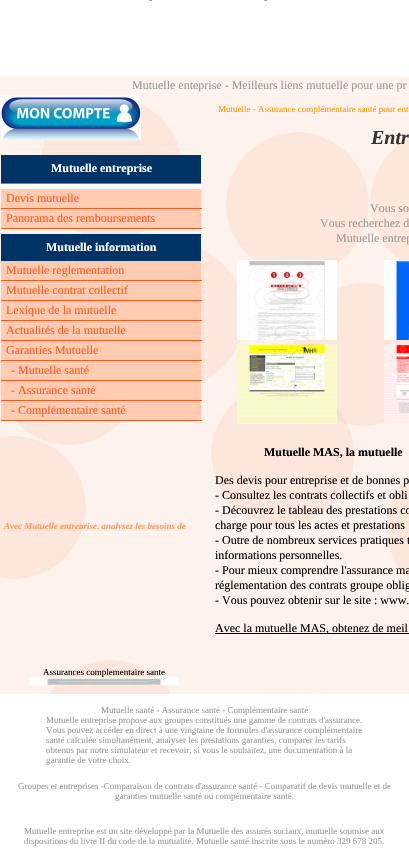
#include "include/core/SkBlurTypes.h"
#include "include/core/SkCanvas.h"
#include "include/core/SkData.h"
#include "include/core/SkFont.h"
#include "include/core/SkFontMgr.h"
#include "include/core/SkImage.h"
#include "include/core/SkMaskFilter.h"
#include "include/core/SkPaint.h"
#include "include/core/SkPathBuilder.h"
#include "include/core/SkTextBlob.h"
#include "include/effects/SkDashPathEffect.h"
#include "include/effects/SkGradientShader.h"
#include "include/utils/SkParsePath.h"

extern sk_sp<SkFontMgr> fontMgr;

void draw(SkCanvas* canvas) {
    SkPaint p;
    p.setAntiAlias(true);
    auto font = [&](const char* family, int weight, float size, bool italic = false) {
        SkFontStyle style(weight, SkFontStyle::kNormal_Width,
            italic ? SkFontStyle::kItalic_Slant : SkFontStyle::kUpright_Slant);
        SkFont result(fontMgr->matchFamilyStyle(family, style), size);
        result.setSubpixel(true);
        return result;
    };
    auto drawPhoto = [&](const char* path, float l, float t, float r, float b) {
        auto image = SkImages::DeferredFromEncodedData(SkData::MakeFromFileName(path));
        canvas->drawImageRect(image, SkRect::MakeLTRB(l, t, r, b), SkSamplingOptions());
    };
    canvas->clear(0xFFFFFFFF);
    auto font1 = font("Liberation Serif", 400, 10);
    p.setColor(0xFF808080);
    canvas->drawString("-", 149, 3, font1, p);
    canvas->drawString("-", 264, 3, font1, p);
    p.setColor(0xFFFFF3ED);
    canvas->drawRect(SkRect::MakeLTRB(0, 77, 409, 96), p);
    drawPhoto("media/1.png", 0, 96, 409, 694);
    auto font2 = font("Liberation Serif", 400, 12);
    p.setColor(0xFF999999);
    canvas->drawString("Mutuelle enteprise - Meilleurs liens mutuelle pour une pr", 132, 89, font2, p);
    drawPhoto("media/2.png", 1, 95, 141, 140);
    p.setColor(0xFFFFFFFF);
    canvas->drawRect(SkRect::MakeLTRB(1, 184, 201, 189), p);
    drawPhoto("media/3.png", 1, 155, 201, 184);
    auto font3 = font("Liberation Serif", 700, 12);
    canvas->drawString("Mutuelle entreprise", 51, 172, font3, p);
    p.setColor(0xFFFFCCB2);
    canvas->drawRect(SkRect::MakeLTRB(1, 189, 201, 208), p);
    p.setColor(0xFFFA5922);
    canvas->drawRect(SkRect::MakeLTRB(1, 208, 202, 209), p);
    canvas->drawString("Devis mutuelle", 6, 202, font2, p);
    p.setColor(0xFFFFCCB2);
    canvas->drawRect(SkRect::MakeLTRB(1, 209, 201, 228), p);
    p.setColor(0xFFFA5922);
    canvas->drawRect(SkRect::MakeLTRB(1, 228, 202, 229), p);
    canvas->drawString("Panorama des remboursements", 6, 222, font2, p);
    drawPhoto("media/4.png", 1, 234, 201, 261);
    p.setColor(0xFFFFFFFF);
    canvas->drawString("Mutuelle information", 46, 251, font3, p);
    p.setColor(0xFFFFCCB2);
    canvas->drawRect(SkRect::MakeLTRB(1, 261, 201, 280), p);
    p.setColor(0xFFFA5922);
    canvas->drawRect(SkRect::MakeLTRB(1, 280, 202, 281), p);
    canvas->drawString("Mutuelle reglementation", 6, 274, font2, p);
    p.setColor(0xFFFFCCB2);
    canvas->drawRect(SkRect::MakeLTRB(1, 281, 201, 300), p);
    p.setColor(0xFFFA5922);
    canvas->drawRect(SkRect::MakeLTRB(1, 300, 202, 301), p);
    canvas->drawString("Mutuelle contrat collectif", 6, 294, font2, p);
    p.setColor(0xFFFFCCB2);
    canvas->drawRect(SkRect::MakeLTRB(1, 301, 201, 320), p);
    p.setColor(0xFFFA5922);
    canvas->drawRect(SkRect::MakeLTRB(1, 320, 202, 321), p);
    canvas->drawString("Lexique de la mutuelle", 6, 314, font2, p);
    p.setColor(0xFFFFCCB2);
    canvas->drawRect(SkRect::MakeLTRB(1, 321, 201, 340), p);
    p.setColor(0xFFFA5922);
    canvas->drawRect(SkRect::MakeLTRB(1, 340, 202, 341), p);
    canvas->drawString("Actualités de la mutuelle", 6, 334, font2, p);
    p.setColor(0xFFFFCCB2);
    canvas->drawRect(SkRect::MakeLTRB(1, 341, 201, 360), p);
    p.setColor(0xFFFA5922);
    canvas->drawRect(SkRect::MakeLTRB(1, 360, 202, 361), p);
    canvas->drawString("Garanties Mutuelle", 6, 354, font2, p);
    p.setColor(0xFFFFCCB2);
    canvas->drawRect(SkRect::MakeLTRB(1, 361, 201, 380), p);
    p.setColor(0xFFFA5922);
    canvas->drawRect(SkRect::MakeLTRB(1, 380, 202, 381), p);
    canvas->drawString("- Mutuelle santé", 11, 374, font2, p);
    p.setColor(0xFFFFCCB2);
    canvas->drawRect(SkRect::MakeLTRB(1, 381, 201, 400), p);
    p.setColor(0xFFFA5922);
    canvas->drawRect(SkRect::MakeLTRB(1, 400, 202, 401), p);
    canvas->drawString("- Assurance santé", 11, 394, font2, p);
    p.setColor(0xFFFFCCB2);
    canvas->drawRect(SkRect::MakeLTRB(1, 401, 201, 420), p);
    p.setColor(0xFFFA5922);
    canvas->drawRect(SkRect::MakeLTRB(1, 420, 202, 421), p);
    canvas->drawString("- Complémentaire santé", 11, 414, font2, p);
    canvas->save();
    canvas->clipRect(SkRect::MakeLTRB(4, 429, 204, 529));
    auto font4 = font("Liberation Serif", 700, 9, true);
    p.setColor(0xFFFF9966);
    canvas->drawString("Avec Mutuelle entreprise, analysez les besoins de", 4, 529, font4, p);
    canvas->restore();
    auto font5 = font("Liberation Serif", 400, 9);
    p.setColor(0xFF000000);
    canvas->drawString("Assurances complementaire sante", 43, 675, font5, p);
    drawPhoto("media/5.png", 29, 677, 179, 685);
    p.setColor(0xFFFF9900);
    canvas->drawString("Mutuelle - Assurance complémentaire santé pour ent", 218, 112, font5, p);
    auto font6 = font("Liberation Serif", 700, 20, true);
    p.setColor(0xFF333333);
    canvas->drawString("Entr", 371, 144, font6, p);
    p.setColor(0xFF999999);
    {
        const struct { const char* s; float x, y; } items[] = {
            {"Vous so", 370, 212},
            {"Vous recherchez d", 320, 227},
            {"Mutuelle entrep", 336, 242},
        };
        for (auto [s, x, y] : items) {
            canvas->drawString(s, x, y, font2, p);
        }
    }
    drawPhoto("media/6.png", 237, 260, 337, 340);
    drawPhoto("media/7.png", 384, 260, 409, 340);
    drawPhoto("media/8.png", 237, 344, 337, 424);
    drawPhoto("media/9.png", 384, 344, 409, 424);
    p.setColor(0xFF000000);
    canvas->drawString("Mutuelle MAS, la mutuelle", 264, 456, font3, p);
    {
        const struct { const char* s; float x, y; } items[] = {
            {"Des devis pour entreprise et de bonnes p", 215, 484},
            {"- Consultez les contrats collectifs et obli", 215, 499},
            {"- Découvrez le tableau des prestations co", 215, 514},
            {"charge pour tous les actes et prestations", 215, 529},
            {"- Outre de nombreux services pratiques t", 215, 544},
            {"informations personnelles.", 215, 559},
            {"- Pour mieux comprendre l'assurance ma", 215, 574},
            {"réglementation des contrats groupe oblig", 215, 589},
            {"- Vous pouvez obtenir sur le site : www.", 215, 604},
        };
        for (auto [s, x, y] : items) {
            canvas->drawString(s, x, y, font2, p);
        }
    }
    canvas->drawRect(SkRect::MakeLTRB(215, 633, 409, 634), p);
    canvas->drawString("Avec la mutuelle MAS, obtenez de meil", 215, 632, font2, p);
    p.setColor(0xFF999999);
    {
        const struct { const char* s; float x, y; } items[] = {
            {"Mutuelle santé - Assurance santé - Complémentaire santé", 101, 713},
            {"Mutuelle entreprise propose aux groupes constitués une gamme de contrats d'assurance.", 46, 723},
            {"Vous pouvez accéder en direct à une vingtaine de formules d'assurance complémentaire", 46, 733},
            {"santé calculée simultanément, analyser les prestations garanties, comparer les tarifs", 46, 743},
            {"obtenus par notre simulateur et recevoir, si vous le souhaitez, une documentation à la", 46, 753},
            {"garantie de votre choix.", 46, 763},
            {"Groupes et entreprises -Comparaison de contrats d'assurance santé - Comparatif de devis mutuelle et de", 18, 789},
            {"garanties mutuelle santé ou compémentaire santé.", 115, 799},
            {"Mutuelle entreprise est un site développé par la Mutuelle des assurés sociaux, mutuelle soumise aux", 24, 834},
            {"dispositions du livre II du code de la mutualité. Mutuelle santé inscrite sous le numéro 329 678 205.", 24, 844},
        };
        for (auto [s, x, y] : items) {
            canvas->drawString(s, x, y, font5, p);
        }
    }
}
